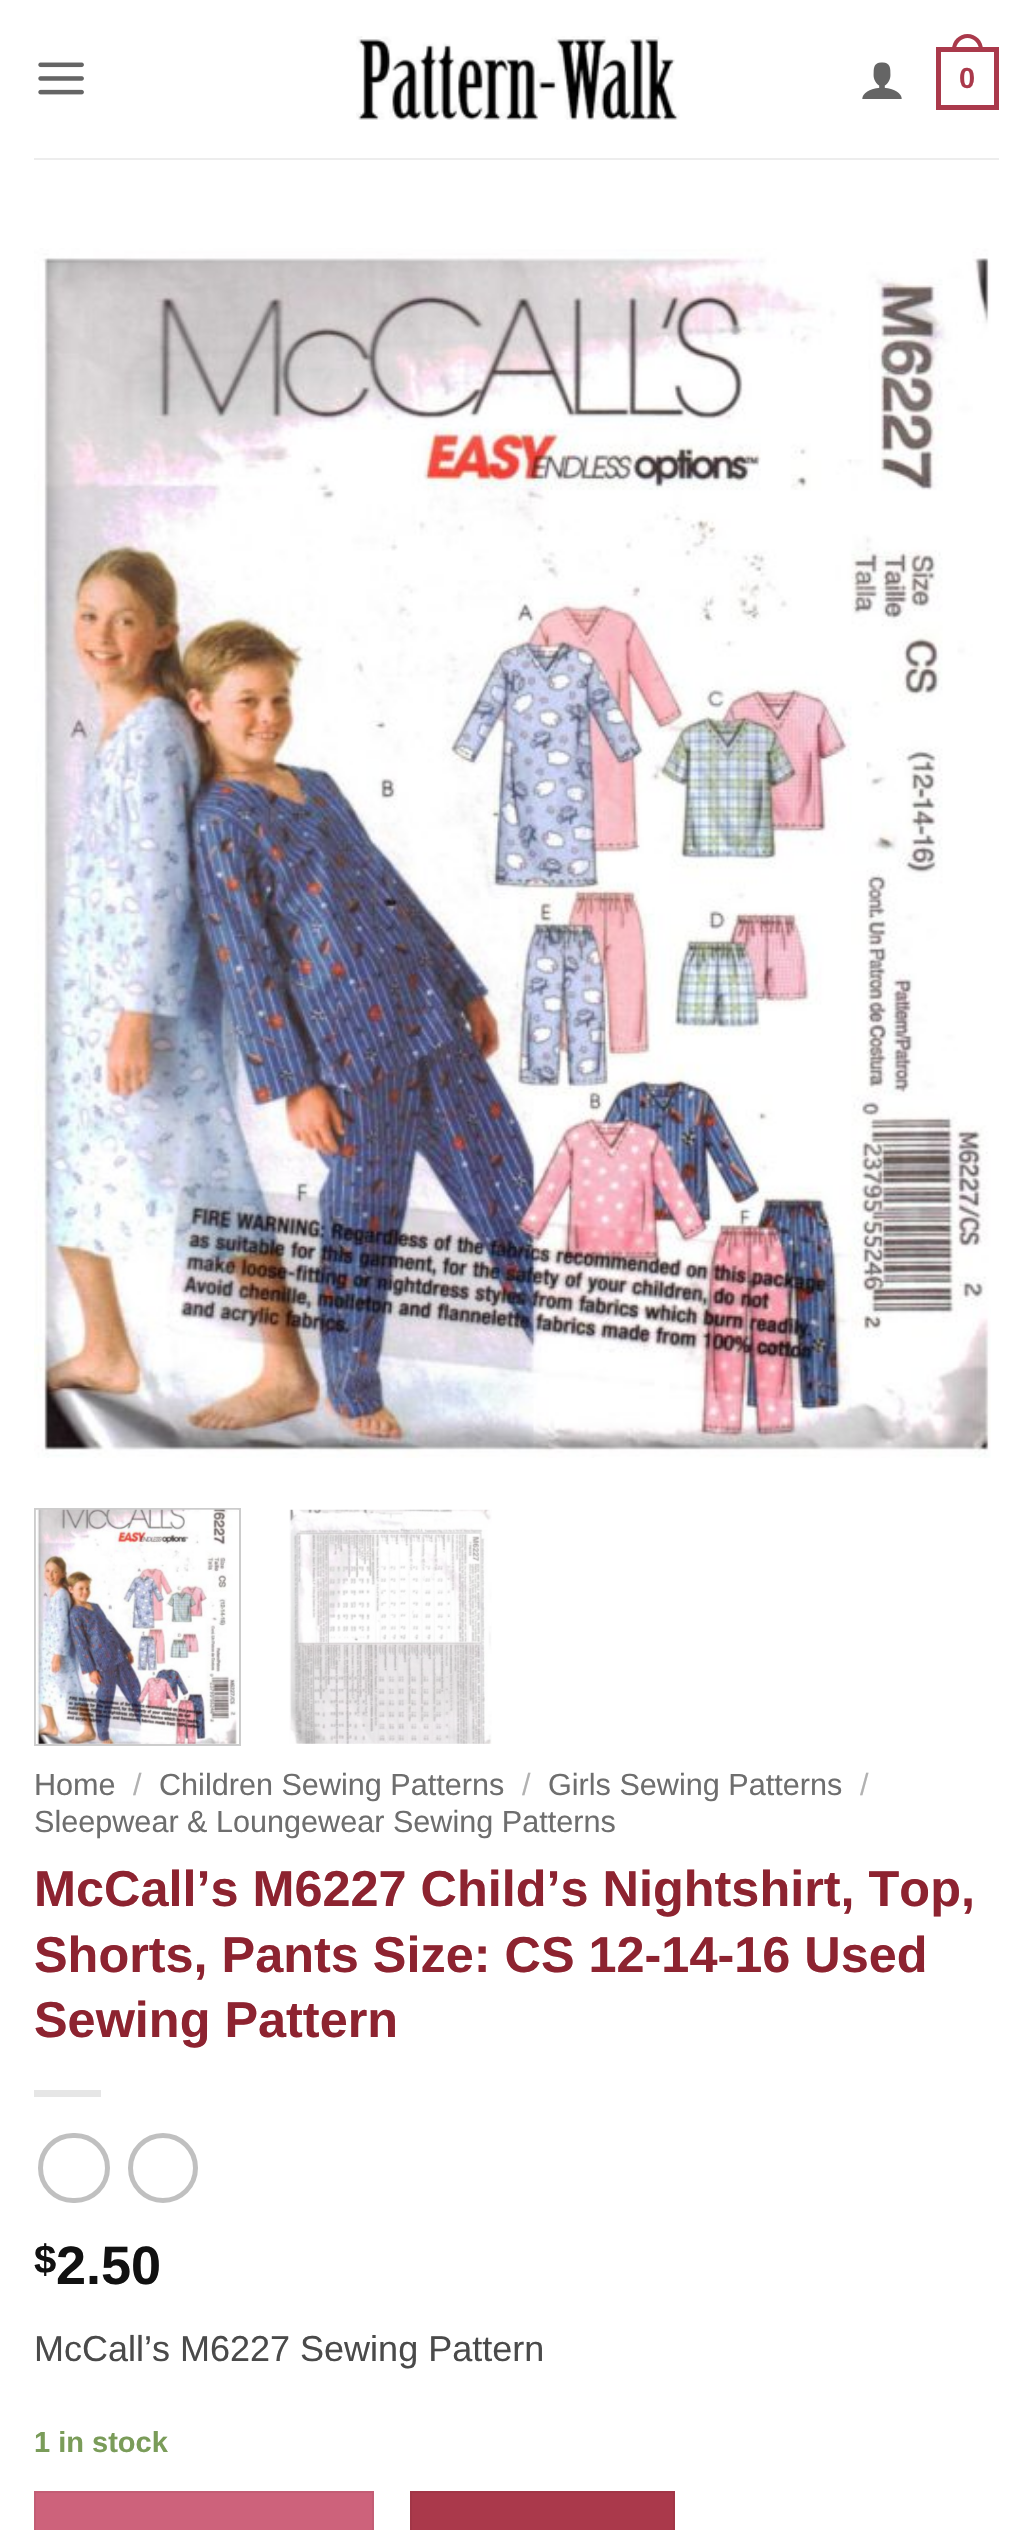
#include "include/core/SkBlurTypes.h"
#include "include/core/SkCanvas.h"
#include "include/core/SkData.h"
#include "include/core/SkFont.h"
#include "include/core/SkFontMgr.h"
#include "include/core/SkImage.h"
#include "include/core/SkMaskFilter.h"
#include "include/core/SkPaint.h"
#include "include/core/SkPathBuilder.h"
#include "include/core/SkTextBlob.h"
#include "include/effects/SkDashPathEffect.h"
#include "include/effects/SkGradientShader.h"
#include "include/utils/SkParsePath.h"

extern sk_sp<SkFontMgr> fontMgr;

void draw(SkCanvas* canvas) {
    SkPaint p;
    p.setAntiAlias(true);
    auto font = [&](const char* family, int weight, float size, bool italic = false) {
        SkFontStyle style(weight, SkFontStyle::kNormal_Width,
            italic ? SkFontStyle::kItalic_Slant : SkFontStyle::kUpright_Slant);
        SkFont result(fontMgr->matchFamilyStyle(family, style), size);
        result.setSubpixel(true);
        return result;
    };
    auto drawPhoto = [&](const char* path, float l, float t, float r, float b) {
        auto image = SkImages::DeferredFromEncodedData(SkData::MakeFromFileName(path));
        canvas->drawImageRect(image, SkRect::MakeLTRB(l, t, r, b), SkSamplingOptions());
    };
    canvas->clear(0xFFFFFFFF);
    drawPhoto("media/1.png", 38, 62, 84, 95);
    drawPhoto("media/2.png", 356, 36, 680, 120);
    drawPhoto("media/3.png", 862, 62, 902, 99);
    p.setStyle(SkPaint::kStroke_Style);
    p.setStrokeWidth(5);
    p.setColor(0xFFAA394B);
    canvas->drawRect(SkRect::MakeLTRB(938.5f, 49.5f, 996.5f, 107.5f), p);
    p.setStyle(SkPaint::kFill_Style);
    canvas->drawPath(SkPathBuilder(SkPathFillType::kEvenOdd).moveTo(967.5f, 34).cubicTo(976, 34, 983, 41, 983, 49.5f).lineTo(983, 52).lineTo(952, 52).lineTo(952, 49.5f).cubicTo(952, 41, 959, 34, 967.5f, 34).close().moveTo(967.5f, 38).cubicTo(973.5f, 38, 979, 43.5f, 979, 49.5f).lineTo(979, 52).lineTo(956, 52).lineTo(956, 49.5f).cubicTo(956, 43.5f, 961.5f, 38, 967.5f, 38).close().detach(), p);
    auto font1 = font("Liberation Sans", 700, 29);
    canvas->drawString("0", 959, 88, font1, p);
    p.setColor(0xFFEDEDED);
    canvas->drawRect(SkRect::MakeLTRB(34, 158, 999, 160), p);
    drawPhoto("media/4.png", 34, 248, 991, 1458);
    p.setStyle(SkPaint::kStroke_Style);
    p.setStrokeWidth(2);
    p.setColor(0xFFCCCCCC);
    canvas->drawRect(SkRect::MakeLTRB(35, 1509, 240, 1745), p);
    drawPhoto("media/5.png", 35, 1509, 239, 1744);
    drawPhoto("media/6.png", 289, 1509, 492, 1744);
    auto font2 = font("Liberation Sans", 400, 30.6f);
    p.setStyle(SkPaint::kFill_Style);
    p.setColor(0xFF6E6E6E);
    canvas->drawString("Home", 34, 1795, font2, p);
    p.setColor(0xFFB2B2B2);
    canvas->drawString("/", 133, 1795, font2, p);
    p.setColor(0xFF6E6E6E);
    canvas->drawString("Children Sewing Patterns", 159, 1795, font2, p);
    p.setColor(0xFFB2B2B2);
    canvas->drawString("/", 522, 1795, font2, p);
    p.setColor(0xFF6E6E6E);
    canvas->drawString("Girls Sewing Patterns", 548, 1795, font2, p);
    p.setColor(0xFFB2B2B2);
    canvas->drawString("/", 860, 1795, font2, p);
    p.setColor(0xFF6E6E6E);
    canvas->drawString("Sleepwear & Loungewear Sewing Patterns", 34, 1832, font2, p);
    auto font3 = font("Liberation Sans", 700, 50.4f);
    p.setColor(0xFF8D2330);
    {
        const struct { const char* s; float x, y; } items[] = {
            {"McCall’s M6227 Child’s Nightshirt, Top,", 34, 1906},
            {"Shorts, Pants Size: CS 12-14-16 Used", 34, 1972},
            {"Sewing Pattern", 34, 2037},
        };
        for (auto [s, x, y] : items) {
            canvas->drawString(s, x, y, font3, p);
        }
    }
    p.setColor(0xFFE6E6E6);
    canvas->drawRect(SkRect::MakeLTRB(34, 2090, 101, 2097), p);
    p.setStyle(SkPaint::kStroke_Style);
    p.setStrokeWidth(5);
    p.setColor(0xFFC0C0C0);
    canvas->drawRoundRect(SkRect::MakeLTRB(40.5f, 2135.5f, 107.5f, 2200.5f), 32.5f, 32.5f, p);
    canvas->drawCircle(163, 2168, 32.5f, p);
    auto font4 = font("Liberation Sans", 700, 40);
    p.setStyle(SkPaint::kFill_Style);
    p.setColor(0xFF111111);
    canvas->drawString("$", 34, 2273, font4, p);
    auto font5 = font("Liberation Sans", 700, 54);
    canvas->drawString("2.50", 56, 2284, font5, p);
    auto font6 = font("Liberation Sans", 400, 36);
    p.setColor(0xFF4A4A4A);
    canvas->drawString("McCall’s M6227 Sewing Pattern", 34, 2361, font6, p);
    p.setColor(0xFF7A9C59);
    canvas->drawString("1 in stock", 34, 2452, font1, p);
    p.setColor(0xFFCD627B);
    canvas->drawRect(SkRect::MakeLTRB(35, 2492, 373, 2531), p);
    p.setStyle(SkPaint::kStroke_Style);
    p.setStrokeWidth(2);
    p.setColor(0xFFC35D75);
    canvas->drawRect(SkRect::MakeLTRB(35, 2492, 373, 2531), p);
    p.setStyle(SkPaint::kFill_Style);
    p.setColor(0xFFAA394B);
    canvas->drawRect(SkRect::MakeLTRB(411, 2492, 674, 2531), p);
    p.setStyle(SkPaint::kStroke_Style);
    p.setColor(0xFFA23647);
    canvas->drawRect(SkRect::MakeLTRB(411, 2492, 674, 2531), p);
}
